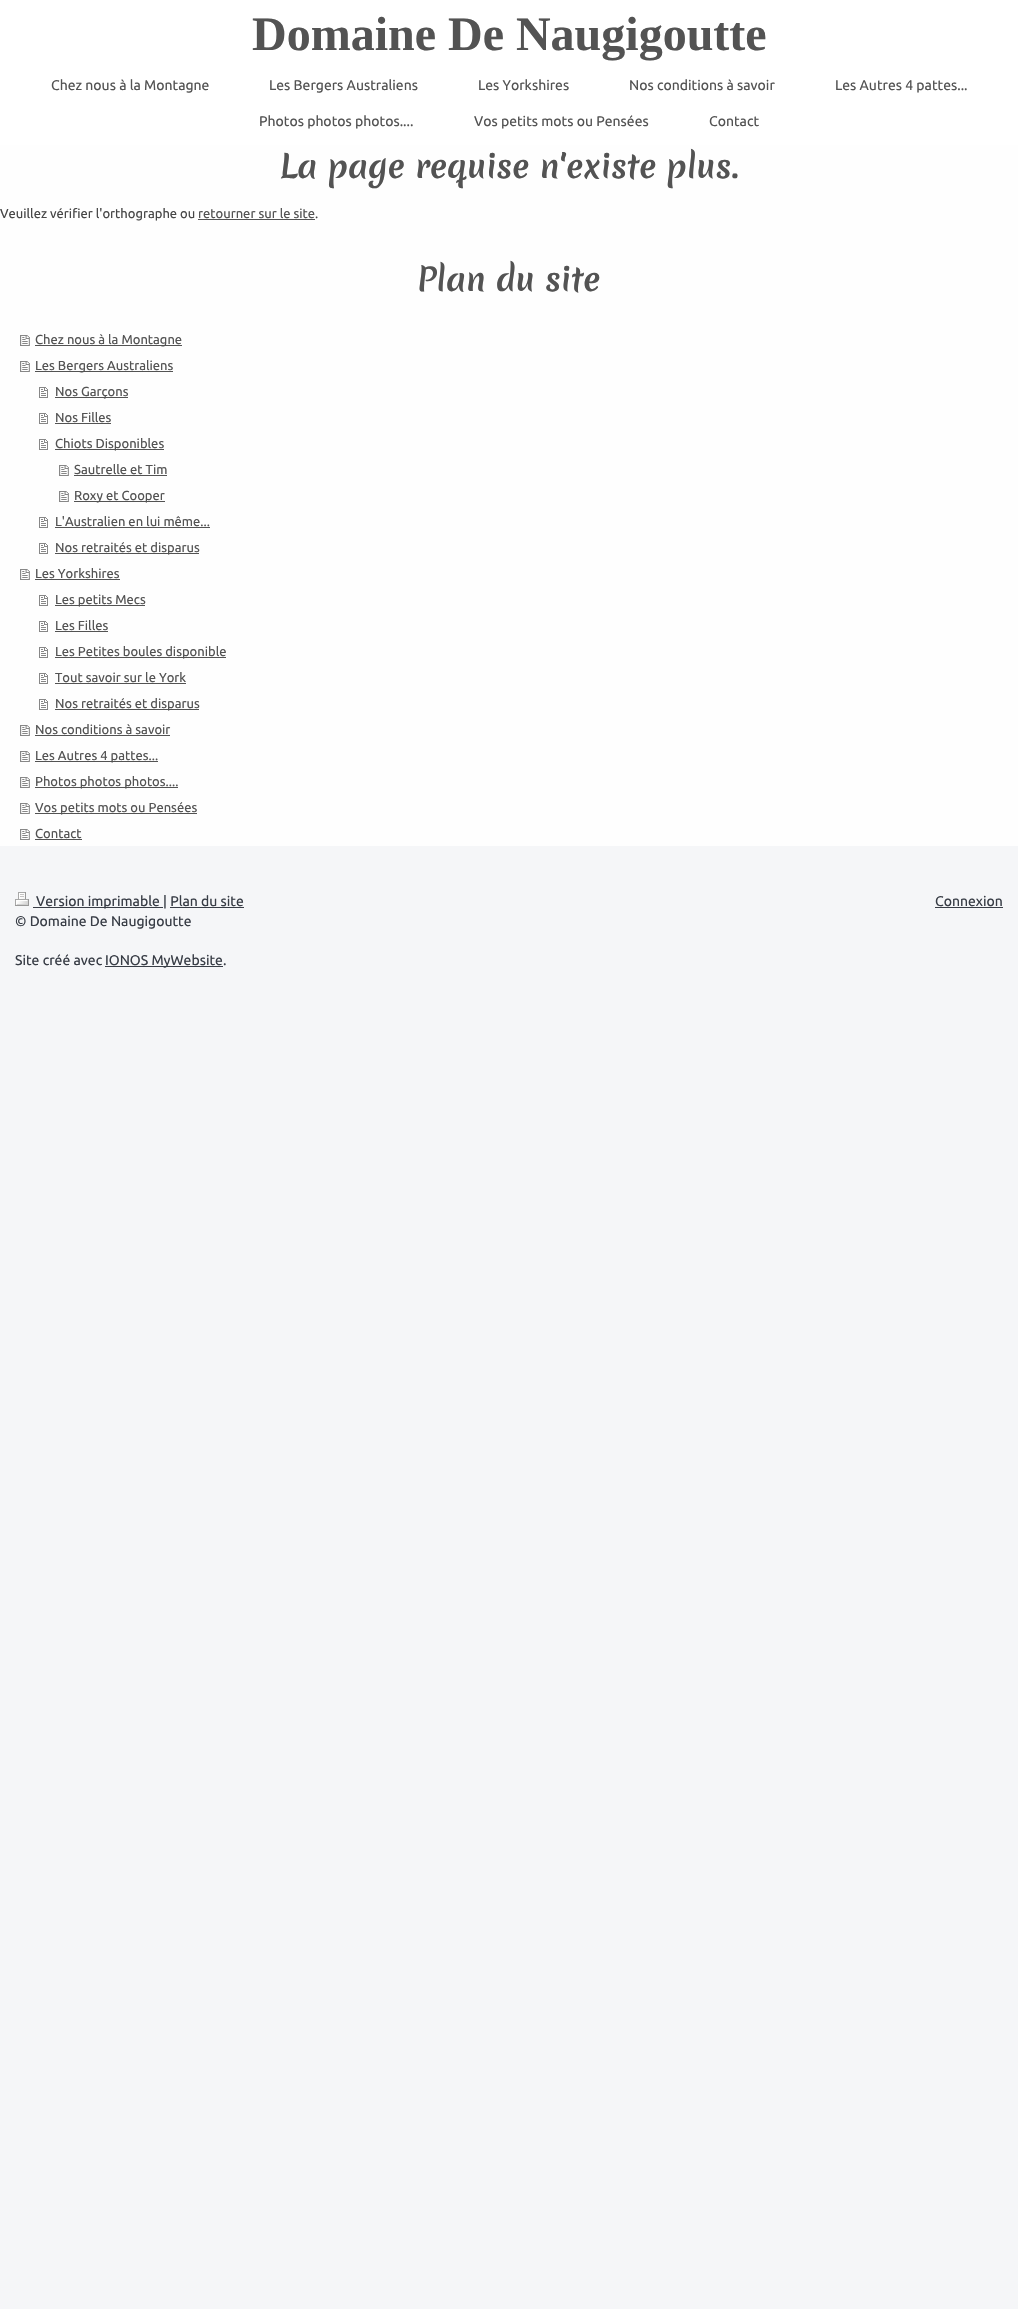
#include "include/core/SkBlurTypes.h"
#include "include/core/SkCanvas.h"
#include "include/core/SkData.h"
#include "include/core/SkFont.h"
#include "include/core/SkFontMgr.h"
#include "include/core/SkImage.h"
#include "include/core/SkMaskFilter.h"
#include "include/core/SkPaint.h"
#include "include/core/SkPathBuilder.h"
#include "include/core/SkTextBlob.h"
#include "include/effects/SkDashPathEffect.h"
#include "include/effects/SkGradientShader.h"
#include "include/utils/SkParsePath.h"

extern sk_sp<SkFontMgr> fontMgr;

void draw(SkCanvas* canvas) {
    SkPaint p;
    p.setAntiAlias(true);
    auto font = [&](const char* family, int weight, float size, bool italic = false) {
        SkFontStyle style(weight, SkFontStyle::kNormal_Width,
            italic ? SkFontStyle::kItalic_Slant : SkFontStyle::kUpright_Slant);
        SkFont result(fontMgr->matchFamilyStyle(family, style), size);
        result.setSubpixel(true);
        return result;
    };
    auto drawPhoto = [&](const char* path, float l, float t, float r, float b) {
        auto image = SkImages::DeferredFromEncodedData(SkData::MakeFromFileName(path));
        canvas->drawImageRect(image, SkRect::MakeLTRB(l, t, r, b), SkSamplingOptions());
    };
    canvas->clear(0xFFF5F6F8);
    p.setColor(0xFFFFFFFF);
    canvas->drawRect(SkRect::MakeLTRB(0, 0, 1018, 145), p);
    auto font1 = font("Liberation Serif", 700, 48);
    p.setColor(0xFF535353);
    canvas->drawString("Domaine De Naugigoutte", 252, 50, font1, p);
    auto font2 = font("Ubuntu", 400, 14);
    {
        const struct { const char* s; float x, y; } items[] = {
            {"Chez nous à la Montagne", 51, 90},
            {"Les Bergers Australiens", 269, 90},
            {"Les Yorkshires", 478, 90},
            {"Nos conditions à savoir", 629, 90},
            {"Les Autres 4 pattes...", 835, 90},
            {"Photos photos photos....", 259, 126},
            {"Vos petits mots ou Pensées", 474, 126},
            {"Contact", 709, 126},
        };
        for (auto [s, x, y] : items) {
            canvas->drawString(s, x, y, font2, p);
        }
    }
    p.setColor(0xFFFEFEFE);
    canvas->drawRect(SkRect::MakeLTRB(0, 145, 1018, 846), p);
    auto font3 = font("Merienda", 700, 31.5f);
    p.setColor(0xFF535353);
    canvas->drawString("La page requise n'existe plus.", 280, 178, font3, p);
    auto font4 = font("Ubuntu", 400, 13);
    p.setColor(0xFF474747);
    canvas->drawString("Veuillez vérifier l'orthographe ou", 0, 218, font4, p);
    p.setColor(0xFF535353);
    canvas->drawString("retourner sur le site", 198, 218, font4, p);
    canvas->drawRect(SkRect::MakeLTRB(198, 219, 315, 220), p);
    p.setColor(0xFF474747);
    canvas->drawString(".", 315, 218, font4, p);
    p.setColor(0xFF535353);
    canvas->drawString("Plan du site", 417, 291, font3, p);
    drawPhoto("media/1.png", 20, 335, 30, 346);
    canvas->drawRect(SkRect::MakeLTRB(35, 345, 182, 346), p);
    canvas->drawString("Chez nous à la Montagne", 35, 344, font4, p);
    drawPhoto("media/1.png", 20, 361, 30, 372);
    canvas->drawRect(SkRect::MakeLTRB(35, 371, 173, 372), p);
    canvas->drawString("Les Bergers Australiens", 35, 370, font4, p);
    drawPhoto("media/2.png", 39, 387, 48, 398);
    canvas->drawRect(SkRect::MakeLTRB(55, 397, 128, 398), p);
    canvas->drawString("Nos Garçons", 55, 396, font4, p);
    drawPhoto("media/2.png", 39, 413, 48, 424);
    canvas->drawString("Nos Filles", 55, 422, font4, p);
    canvas->drawRect(SkRect::MakeLTRB(55, 423, 111, 424), p);
    drawPhoto("media/2.png", 39, 439, 48, 450);
    canvas->drawRect(SkRect::MakeLTRB(55, 449, 164, 450), p);
    canvas->drawString("Chiots Disponibles", 55, 448, font4, p);
    drawPhoto("media/3.png", 59, 465, 69, 476);
    canvas->drawString("Sautrelle et Tim", 74, 474, font4, p);
    canvas->drawRect(SkRect::MakeLTRB(74, 475, 167, 476), p);
    drawPhoto("media/3.png", 59, 491, 69, 502);
    canvas->drawRect(SkRect::MakeLTRB(74, 501, 165, 502), p);
    canvas->drawString("Roxy et Cooper", 74, 500, font4, p);
    drawPhoto("media/2.png", 39, 517, 48, 528);
    canvas->drawString("L'Australien en lui même...", 55, 526, font4, p);
    canvas->drawRect(SkRect::MakeLTRB(55, 527, 210, 528), p);
    drawPhoto("media/2.png", 39, 543, 48, 554);
    canvas->drawRect(SkRect::MakeLTRB(55, 553, 199, 554), p);
    canvas->drawString("Nos retraités et disparus", 55, 552, font4, p);
    drawPhoto("media/1.png", 20, 569, 30, 580);
    canvas->drawString("Les Yorkshires", 35, 578, font4, p);
    canvas->drawRect(SkRect::MakeLTRB(35, 579, 120, 580), p);
    drawPhoto("media/2.png", 39, 595, 48, 606);
    canvas->drawRect(SkRect::MakeLTRB(55, 605, 145, 606), p);
    canvas->drawString("Les petits Mecs", 55, 604, font4, p);
    drawPhoto("media/2.png", 39, 621, 48, 632);
    canvas->drawString("Les Filles", 55, 630, font4, p);
    canvas->drawRect(SkRect::MakeLTRB(55, 631, 108, 632), p);
    drawPhoto("media/2.png", 39, 647, 48, 658);
    canvas->drawRect(SkRect::MakeLTRB(55, 657, 226, 658), p);
    canvas->drawString("Les Petites boules disponible", 55, 656, font4, p);
    drawPhoto("media/2.png", 39, 673, 48, 684);
    canvas->drawString("Tout savoir sur le York", 55, 682, font4, p);
    canvas->drawRect(SkRect::MakeLTRB(55, 683, 186, 684), p);
    drawPhoto("media/2.png", 39, 699, 48, 710);
    canvas->drawRect(SkRect::MakeLTRB(55, 709, 199, 710), p);
    canvas->drawString("Nos retraités et disparus", 55, 708, font4, p);
    drawPhoto("media/1.png", 20, 725, 30, 736);
    canvas->drawString("Nos conditions à savoir", 35, 734, font4, p);
    canvas->drawRect(SkRect::MakeLTRB(35, 735, 170, 736), p);
    drawPhoto("media/1.png", 20, 751, 30, 762);
    canvas->drawRect(SkRect::MakeLTRB(35, 761, 158, 762), p);
    canvas->drawString("Les Autres 4 pattes...", 35, 760, font4, p);
    drawPhoto("media/1.png", 20, 777, 30, 788);
    canvas->drawRect(SkRect::MakeLTRB(35, 787, 178, 788), p);
    canvas->drawString("Photos photos photos....", 35, 786, font4, p);
    drawPhoto("media/1.png", 20, 803, 30, 814);
    canvas->drawRect(SkRect::MakeLTRB(35, 813, 197, 814), p);
    canvas->drawString("Vos petits mots ou Pensées", 35, 812, font4, p);
    drawPhoto("media/1.png", 20, 829, 30, 840);
    canvas->drawString("Contact", 35, 838, font4, p);
    canvas->drawRect(SkRect::MakeLTRB(35, 839, 82, 840), p);
    drawPhoto("media/4.png", 15, 892, 29, 906);
    p.setColor(0xFF383D46);
    canvas->drawRect(SkRect::MakeLTRB(33, 907, 163, 908), p);
    canvas->drawString("Version imprimable | Plan du site", 36, 906, font2, p);
    canvas->drawRect(SkRect::MakeLTRB(170, 907, 244, 908), p);
    canvas->drawString("© Domaine De Naugigoutte", 15, 926, font2, p);
    canvas->drawString("Site créé avec", 15, 965, font2, p);
    canvas->drawRect(SkRect::MakeLTRB(105, 966, 223, 967), p);
    canvas->drawString("IONOS MyWebsite.", 105, 965, font2, p);
    canvas->drawString("Connexion", 935, 906, font2, p);
    canvas->drawRect(SkRect::MakeLTRB(935, 907, 1003, 908), p);
}
